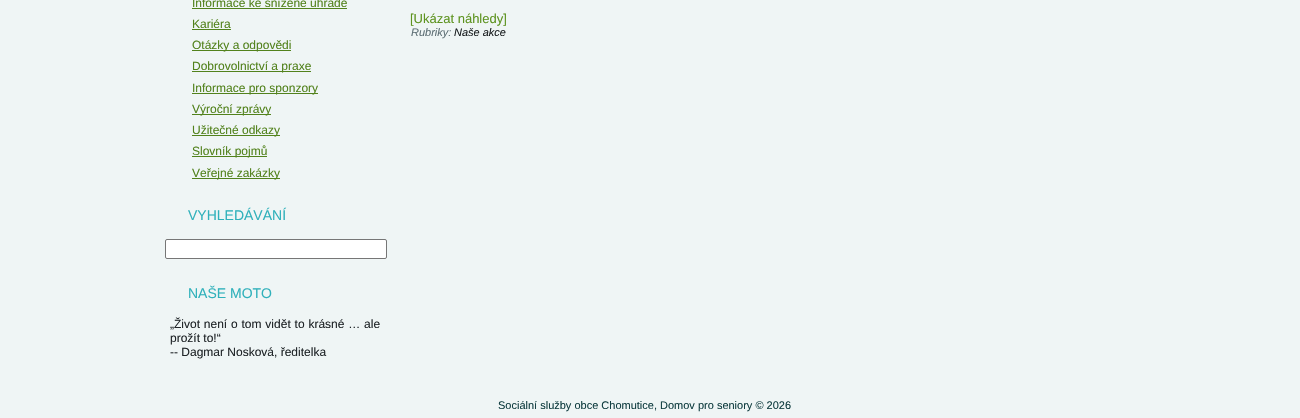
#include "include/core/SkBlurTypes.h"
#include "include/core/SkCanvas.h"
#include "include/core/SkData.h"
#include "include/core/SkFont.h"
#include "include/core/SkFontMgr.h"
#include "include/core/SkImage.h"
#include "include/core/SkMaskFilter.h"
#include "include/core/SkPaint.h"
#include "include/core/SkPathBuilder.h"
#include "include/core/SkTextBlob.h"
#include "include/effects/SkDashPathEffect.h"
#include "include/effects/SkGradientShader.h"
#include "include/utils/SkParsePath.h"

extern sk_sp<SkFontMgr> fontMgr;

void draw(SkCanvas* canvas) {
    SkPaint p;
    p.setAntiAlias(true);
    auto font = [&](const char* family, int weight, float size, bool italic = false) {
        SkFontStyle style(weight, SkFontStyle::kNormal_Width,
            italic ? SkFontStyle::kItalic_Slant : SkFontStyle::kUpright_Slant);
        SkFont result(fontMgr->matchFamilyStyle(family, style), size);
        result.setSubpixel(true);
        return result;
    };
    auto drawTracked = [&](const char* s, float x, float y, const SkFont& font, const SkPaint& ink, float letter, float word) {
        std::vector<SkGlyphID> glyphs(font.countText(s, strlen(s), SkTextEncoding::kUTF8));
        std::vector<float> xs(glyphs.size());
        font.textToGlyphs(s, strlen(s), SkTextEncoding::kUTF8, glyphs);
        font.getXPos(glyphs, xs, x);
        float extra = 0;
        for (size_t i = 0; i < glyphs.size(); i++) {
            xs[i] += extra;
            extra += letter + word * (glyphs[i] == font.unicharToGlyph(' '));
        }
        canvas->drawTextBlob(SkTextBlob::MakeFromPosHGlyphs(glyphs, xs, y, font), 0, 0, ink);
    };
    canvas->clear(0xFFEFF5F5);
    auto font1 = font("Liberation Sans", 400, 12);
    p.setColor(0xFF52821C);
    canvas->drawString("Informace ke snížené úhradě", 192, 7, font1, p);
    canvas->drawRect(SkRect::MakeLTRB(192, 8, 347, 9), p);
    canvas->drawString("Kariéra", 192, 28, font1, p);
    canvas->drawRect(SkRect::MakeLTRB(192, 29, 231, 30), p);
    canvas->drawRect(SkRect::MakeLTRB(192, 50, 291, 51), p);
    canvas->drawString("Otázky a odpovědi", 192, 49, font1, p);
    canvas->drawRect(SkRect::MakeLTRB(192, 71, 311, 72), p);
    canvas->drawString("Dobrovolnictví a praxe", 192, 70, font1, p);
    canvas->drawRect(SkRect::MakeLTRB(192, 93, 318, 94), p);
    canvas->drawString("Informace pro sponzory", 192, 92, font1, p);
    canvas->drawRect(SkRect::MakeLTRB(192, 114, 271, 115), p);
    canvas->drawString("Výroční zprávy", 192, 113, font1, p);
    canvas->drawRect(SkRect::MakeLTRB(192, 135, 280, 136), p);
    canvas->drawString("Užitečné odkazy", 192, 134, font1, p);
    canvas->drawRect(SkRect::MakeLTRB(192, 156, 267, 157), p);
    canvas->drawString("Slovník pojmů", 192, 155, font1, p);
    canvas->drawRect(SkRect::MakeLTRB(192, 178, 280, 179), p);
    canvas->drawString("Veřejné zakázky", 192, 177, font1, p);
    auto font2 = font("Liberation Sans", 400, 14);
    p.setColor(0xFF30B1BB);
    canvas->drawString("VYHLEDÁVÁNÍ", 188, 220, font2, p);
    p.setColor(0xFFFFFFFF);
    canvas->drawRoundRect(SkRect::MakeLTRB(165.5f, 239.5f, 386.5f, 258.5f), 1.5f, 1.5f, p);
    p.setStyle(SkPaint::kStroke_Style);
    p.setStrokeWidth(1);
    p.setColor(0xFF767676);
    canvas->drawRoundRect(SkRect::MakeLTRB(165.5f, 239.5f, 386.5f, 258.5f), 1.5f, 1.5f, p);
    p.setStyle(SkPaint::kFill_Style);
    p.setColor(0xFF30B1BB);
    canvas->drawString("NAŠE MOTO", 188, 298, font2, p);
    p.setColor(0xFF202528);
    drawTracked("„Život není o tom vidět to krásné … ale", 170, 328, font1, p, 0, 0.5f);
    canvas->drawString("prožít to!“", 170, 342, font1, p);
    canvas->drawString("-- Dagmar Nosková, ředitelka", 170, 356, font1, p);
    auto font3 = font("Liberation Sans", 400, 13);
    p.setColor(0xFF5D931F);
    canvas->drawString("[Ukázat náhledy]", 410, 23, font3, p);
    auto font4 = font("Liberation Sans", 400, 11, true);
    p.setColor(0xFF5D6E74);
    canvas->drawString("Rubriky:", 411, 36, font4, p);
    p.setColor(0xFF191D1F);
    canvas->drawString("Naše akce", 454, 36, font4, p);
    auto font5 = font("Liberation Sans", 400, 11);
    p.setColor(0xFF113E41);
    canvas->drawString("Sociální služby obce Chomutice, Domov pro seniory © 2026", 498, 409, font5, p);
}
